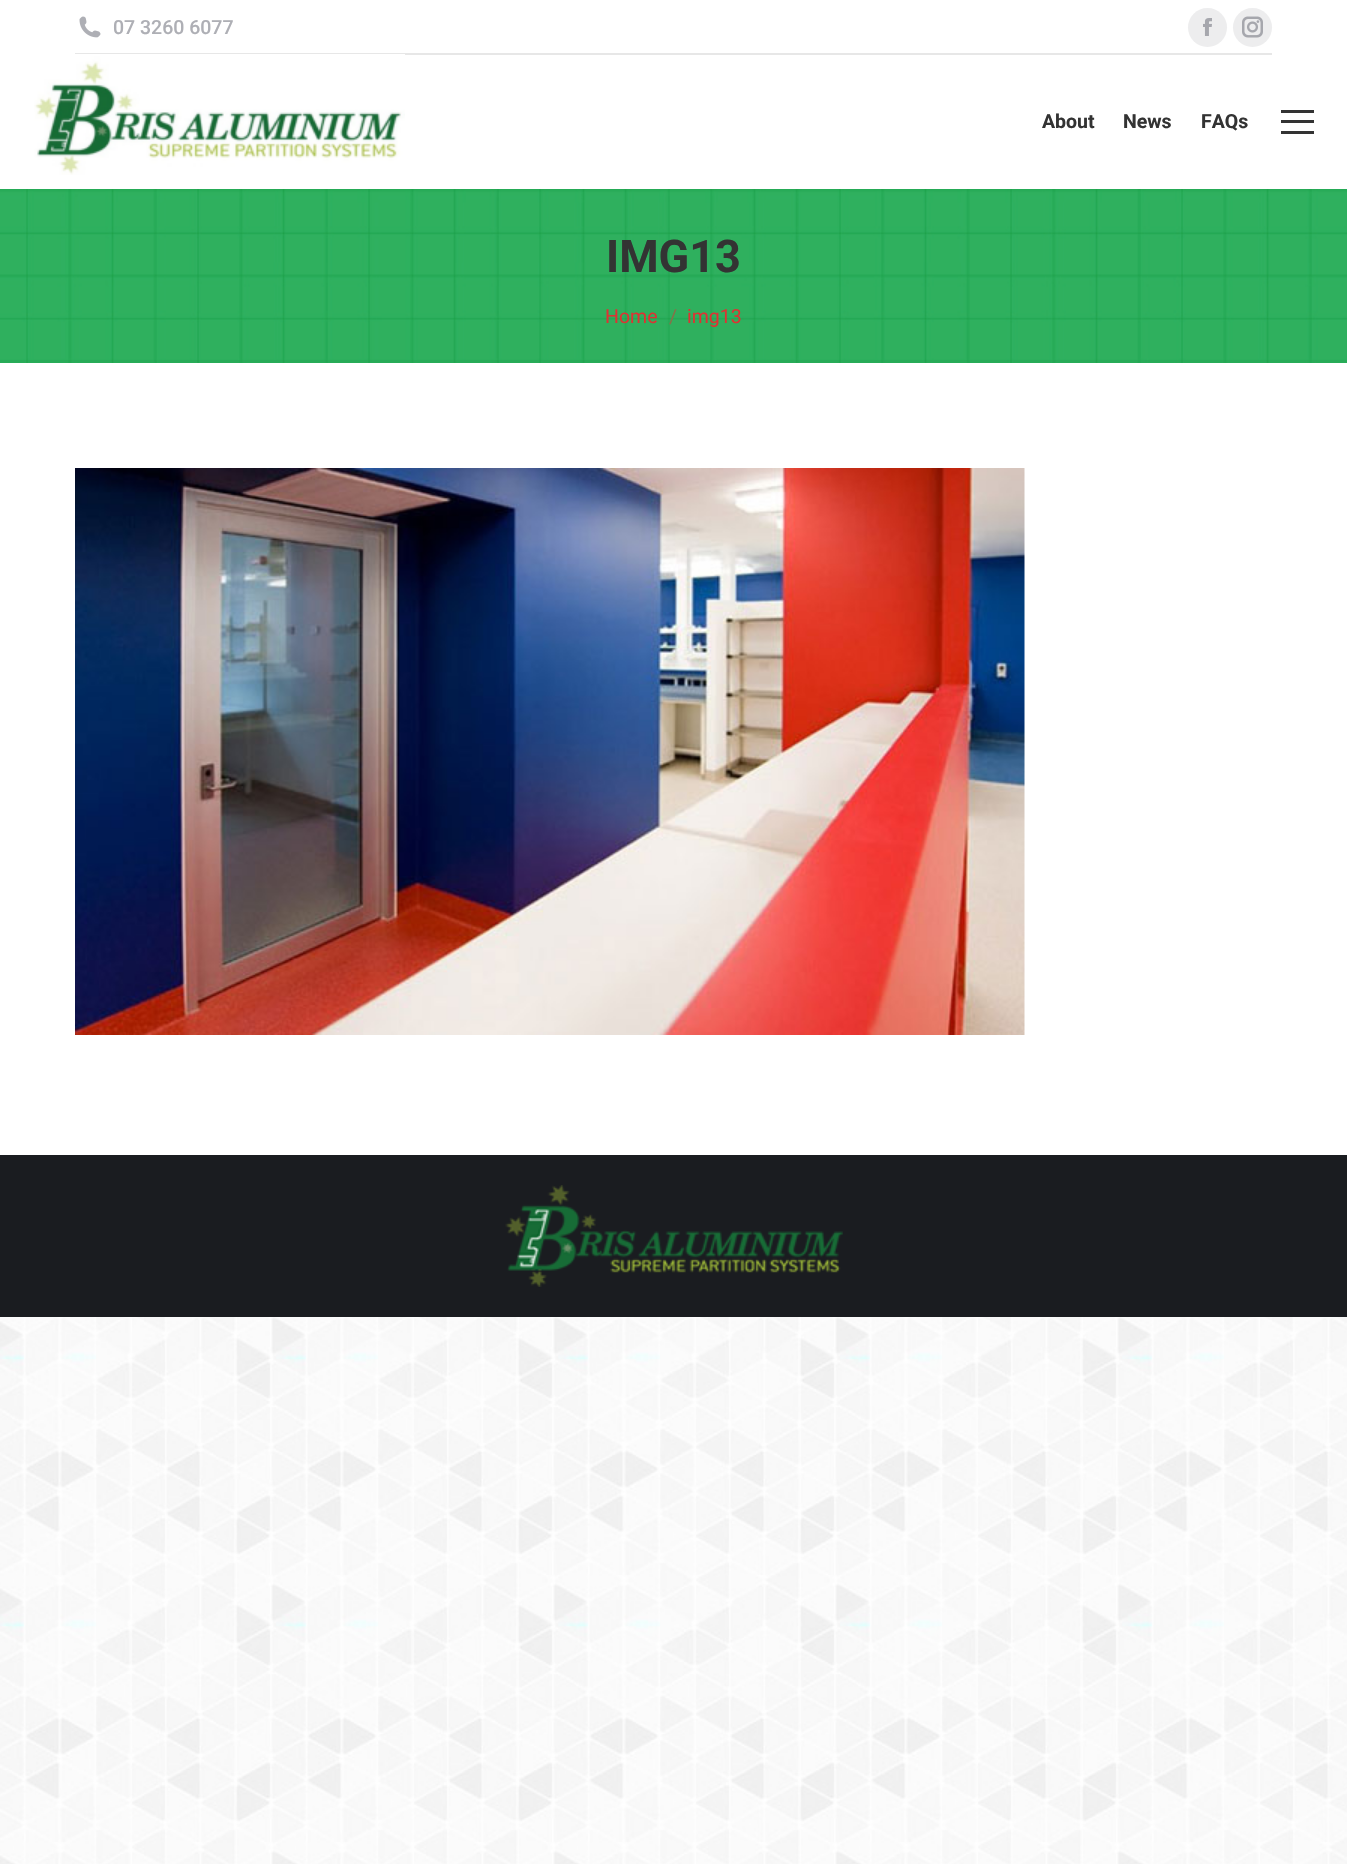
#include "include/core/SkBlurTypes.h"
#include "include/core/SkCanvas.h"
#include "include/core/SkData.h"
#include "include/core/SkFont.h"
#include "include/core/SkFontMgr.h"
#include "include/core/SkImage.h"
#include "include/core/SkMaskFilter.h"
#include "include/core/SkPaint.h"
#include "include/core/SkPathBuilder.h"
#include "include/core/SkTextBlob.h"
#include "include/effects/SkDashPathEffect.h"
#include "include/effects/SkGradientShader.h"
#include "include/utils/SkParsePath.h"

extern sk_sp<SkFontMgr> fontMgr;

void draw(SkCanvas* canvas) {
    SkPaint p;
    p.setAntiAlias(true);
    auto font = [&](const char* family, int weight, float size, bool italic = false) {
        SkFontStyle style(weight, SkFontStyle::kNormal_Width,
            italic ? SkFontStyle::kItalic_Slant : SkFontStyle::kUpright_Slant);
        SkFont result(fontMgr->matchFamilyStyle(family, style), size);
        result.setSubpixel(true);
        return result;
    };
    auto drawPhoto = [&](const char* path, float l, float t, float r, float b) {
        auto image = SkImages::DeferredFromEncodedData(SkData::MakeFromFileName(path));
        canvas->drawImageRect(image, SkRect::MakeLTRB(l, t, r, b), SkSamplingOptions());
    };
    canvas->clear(0xFFFFFFFF);
    drawPhoto("media/1.png", 0, 1317, 1347, 1864);
    drawPhoto("media/2.png", 79, 16, 101, 38);
    auto font1 = font("Roboto", 500, 19.5f);
    p.setColor(0xFFAEAFB5);
    canvas->drawString("07 3260 6077", 113, 34, font1, p);
    p.setColor(0xFFEDEDEE);
    canvas->drawCircle(1207.5f, 27.5f, 19.5f, p);
    drawPhoto("media/3.png", 1203, 18, 1212, 36);
    canvas->drawCircle(1252.5f, 27.5f, 19.5f, p);
    drawPhoto("media/4.png", 1242, 16, 1263, 38);
    p.setColor(0xFFE7E7E7);
    canvas->drawRect(SkRect::MakeLTRB(75, 53, 1272, 55), p);
    drawPhoto("media/5.png", 34, 54, 405, 175);
    auto font2 = font("Roboto", 700, 19.5f);
    p.setColor(0xFF333333);
    {
        const struct { const char* s; float x, y; } items[] = {
            {"About", 1042, 128},
            {"News", 1123, 128},
            {"FAQs", 1201, 128},
        };
        for (auto [s, x, y] : items) {
            canvas->drawString(s, x, y, font2, p);
        }
    }
    {
        const struct { float l, t, r, b; SkColor color; } items[] = {
            {1281, 110, 1314, 113, 0xFF333333},
            {1281, 120, 1314, 123, 0xFF333333},
            {1281, 131, 1314, 134, 0xFF333333},
        };
        for (auto [l, t, r, b, color] : items) {
            p.setColor(color);
            canvas->drawRect(SkRect::MakeLTRB(l, t, r, b), p);
        }
    }
    drawPhoto("media/6.png", 0, 189, 1347, 363);
    auto font3 = font("Roboto", 700, 45);
    canvas->drawString("IMG13", 606, 272, font3, p);
    auto font4 = font("Roboto", 400, 19.5f);
    p.setColor(0xFFDD3333);
    canvas->drawString("Home", 605, 323, font4, p);
    p.setColor(0xFF857148);
    canvas->drawString("/", 669, 323, font4, p);
    p.setColor(0xFFDD3333);
    canvas->drawString("img13", 687, 323, font4, p);
    drawPhoto("media/7.png", 75, 468, 1025, 1035);
    p.setColor(0xFF1A1C20);
    canvas->drawRect(SkRect::MakeLTRB(0, 1155, 1347, 1317), p);
    drawPhoto("media/8.png", 505, 1185, 843, 1287);
}
